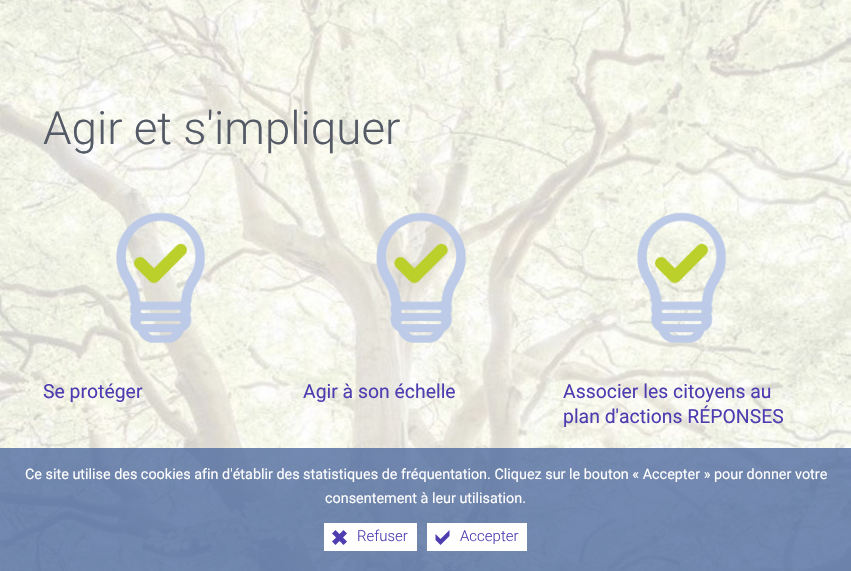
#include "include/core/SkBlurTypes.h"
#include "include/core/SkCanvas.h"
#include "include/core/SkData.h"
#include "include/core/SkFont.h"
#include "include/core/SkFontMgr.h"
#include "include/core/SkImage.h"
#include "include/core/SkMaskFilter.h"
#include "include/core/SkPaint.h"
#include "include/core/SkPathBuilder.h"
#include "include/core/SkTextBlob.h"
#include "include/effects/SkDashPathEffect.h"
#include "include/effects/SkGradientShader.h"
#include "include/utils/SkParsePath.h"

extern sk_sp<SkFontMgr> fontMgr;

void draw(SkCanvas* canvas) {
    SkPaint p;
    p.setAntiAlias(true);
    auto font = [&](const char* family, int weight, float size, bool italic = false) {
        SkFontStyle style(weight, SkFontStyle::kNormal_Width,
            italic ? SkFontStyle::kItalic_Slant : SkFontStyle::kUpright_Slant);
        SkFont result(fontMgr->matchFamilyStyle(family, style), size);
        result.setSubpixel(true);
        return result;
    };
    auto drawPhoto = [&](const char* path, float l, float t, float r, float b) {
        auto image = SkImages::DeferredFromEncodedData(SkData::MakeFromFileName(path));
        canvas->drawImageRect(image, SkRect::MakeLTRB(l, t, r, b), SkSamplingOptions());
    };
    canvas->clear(0xFFFFFFFF);
    drawPhoto("media/1.png", 0, 0, 851, 571);
    auto font1 = font("Roboto", 300, 45.75f);
    p.setColor(0xFF545A66);
    canvas->drawString("Agir et s'impliquer", 43, 144, font1, p);
    drawPhoto("media/2.png", 116, 212, 205, 343);
    auto font2 = font("Roboto", 400, 19.4f);
    p.setColor(0xFF4D3DB0);
    canvas->drawString("Se protéger", 43, 398, font2, p);
    drawPhoto("media/3.png", 376, 212, 466, 343);
    canvas->drawString("Agir à son échelle", 303, 398, font2, p);
    drawPhoto("media/4.png", 637, 212, 726, 343);
    canvas->drawString("Associer les citoyens au", 563, 398, font2, p);
    canvas->drawString("plan d'actions RÉPONSES", 563, 423, font2, p);
    p.setColor(0xCC506B9F);
    canvas->drawRect(SkRect::MakeLTRB(0, 448, 851, 571), p);
    auto font3 = font("Roboto", 400, 14.4f);
    p.setColor(0xFFFFFFFF);
    canvas->drawString("Ce site utilise des cookies afin d'établir des statistiques de fréquentation. Cliquez sur le bouton « Accepter » pour donner votre", 25, 479, font3, p);
    canvas->drawString("consentement à leur utilisation.", 325, 503, font3, p);
    canvas->drawRect(SkRect::MakeLTRB(324, 523, 417, 551), p);
    drawPhoto("media/5.png", 332, 530, 347, 545);
    auto font4 = font("Roboto", 300, 15);
    p.setColor(0xFF4D3DB0);
    canvas->drawString("Refuser", 357, 541, font4, p);
    p.setColor(0xFFFFFFFF);
    canvas->drawRect(SkRect::MakeLTRB(427, 523, 527, 551), p);
    drawPhoto("media/6.png", 435, 530, 450, 545);
    p.setColor(0xFF4D3DB0);
    canvas->drawString("Accepter", 460, 541, font4, p);
}
